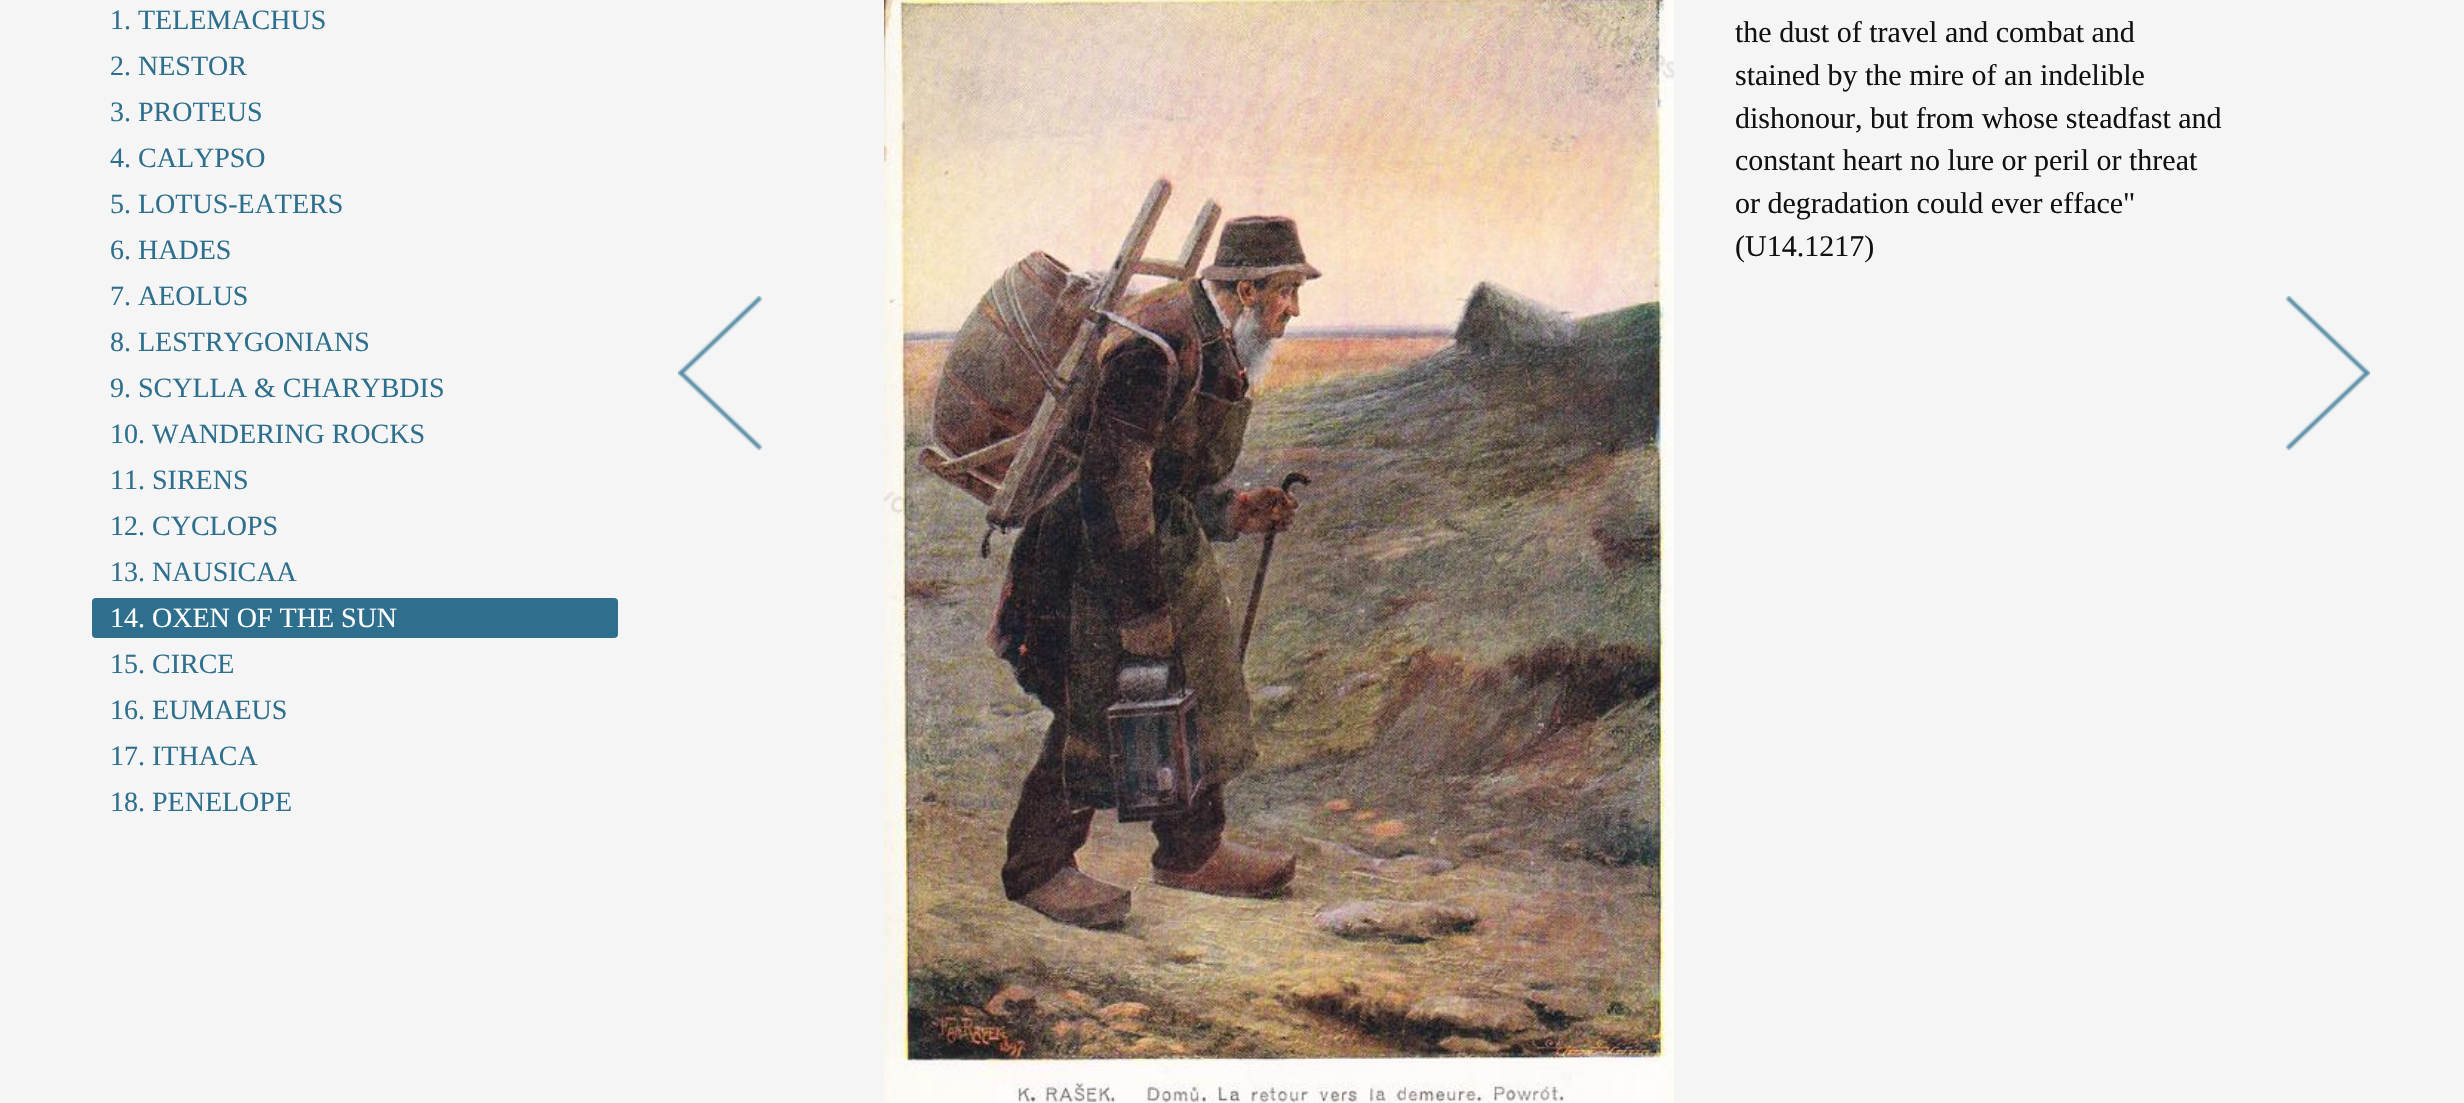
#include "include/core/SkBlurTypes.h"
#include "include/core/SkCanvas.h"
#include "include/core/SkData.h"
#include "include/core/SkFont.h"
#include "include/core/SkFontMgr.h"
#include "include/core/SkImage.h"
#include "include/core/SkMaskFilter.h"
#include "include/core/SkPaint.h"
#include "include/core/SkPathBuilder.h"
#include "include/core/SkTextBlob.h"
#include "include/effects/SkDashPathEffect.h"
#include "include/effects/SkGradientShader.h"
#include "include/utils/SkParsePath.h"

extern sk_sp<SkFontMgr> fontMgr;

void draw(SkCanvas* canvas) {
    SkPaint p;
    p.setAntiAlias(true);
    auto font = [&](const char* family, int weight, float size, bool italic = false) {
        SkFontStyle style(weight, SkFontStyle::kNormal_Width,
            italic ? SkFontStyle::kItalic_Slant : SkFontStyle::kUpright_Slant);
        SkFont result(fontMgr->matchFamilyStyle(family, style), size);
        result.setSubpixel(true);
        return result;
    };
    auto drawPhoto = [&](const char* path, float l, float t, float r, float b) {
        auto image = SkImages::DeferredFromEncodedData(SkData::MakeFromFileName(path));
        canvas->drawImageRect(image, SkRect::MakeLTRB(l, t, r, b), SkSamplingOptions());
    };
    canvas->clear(0xFFF5F5F5);
    auto font1 = font("Liberation Serif", 400, 28);
    p.setColor(0xFF2E6F8D);
    {
        const struct { const char* s; float x, y; } items[] = {
            {"1. TELEMACHUS", 110, 29},
            {"2. NESTOR", 110, 75},
            {"3. PROTEUS", 110, 121},
            {"4. CALYPSO", 110, 167},
            {"5. LOTUS-EATERS", 110, 213},
            {"6. HADES", 110, 259},
            {"7. AEOLUS", 110, 305},
            {"8. LESTRYGONIANS", 110, 351},
            {"9. SCYLLA & CHARYBDIS", 110, 397},
            {"10. WANDERING ROCKS", 110, 443},
            {"11. SIRENS", 110, 489},
            {"12. CYCLOPS", 110, 535},
            {"13. NAUSICAA", 110, 581},
        };
        for (auto [s, x, y] : items) {
            canvas->drawString(s, x, y, font1, p);
        }
    }
    canvas->drawRoundRect(SkRect::MakeLTRB(92, 598, 618, 638), 4, 4, p);
    p.setColor(0xFFFFFFFF);
    canvas->drawString("14. OXEN OF THE SUN", 110, 627, font1, p);
    p.setColor(0xFF2E6F8D);
    {
        const struct { const char* s; float x, y; } items[] = {
            {"15. CIRCE", 110, 673},
            {"16. EUMAEUS", 110, 719},
            {"17. ITHACA", 110, 765},
            {"18. PENELOPE", 110, 811},
        };
        for (auto [s, x, y] : items) {
            canvas->drawString(s, x, y, font1, p);
        }
    }
    drawPhoto("media/1.png", 884, 0, 1674, 1103);
    auto font2 = font("Liberation Serif", 400, 30);
    p.setColor(0xFF111111);
    {
        const struct { const char* s; float x, y; } items[] = {
            {"the dust of travel and combat and", 1735, 42},
            {"stained by the mire of an indelible", 1735, 85},
            {"dishonour, but from whose steadfast and", 1735, 128},
            {"constant heart no lure or peril or threat", 1735, 170},
            {"or degradation could ever efface\"", 1735, 213},
            {"(U14.1217)", 1735, 256},
        };
        for (auto [s, x, y] : items) {
            canvas->drawString(s, x, y, font2, p);
        }
    }
    drawPhoto("media/2.png", 678, 296, 762, 450);
    drawPhoto("media/3.png", 2286, 296, 2370, 450);
}
